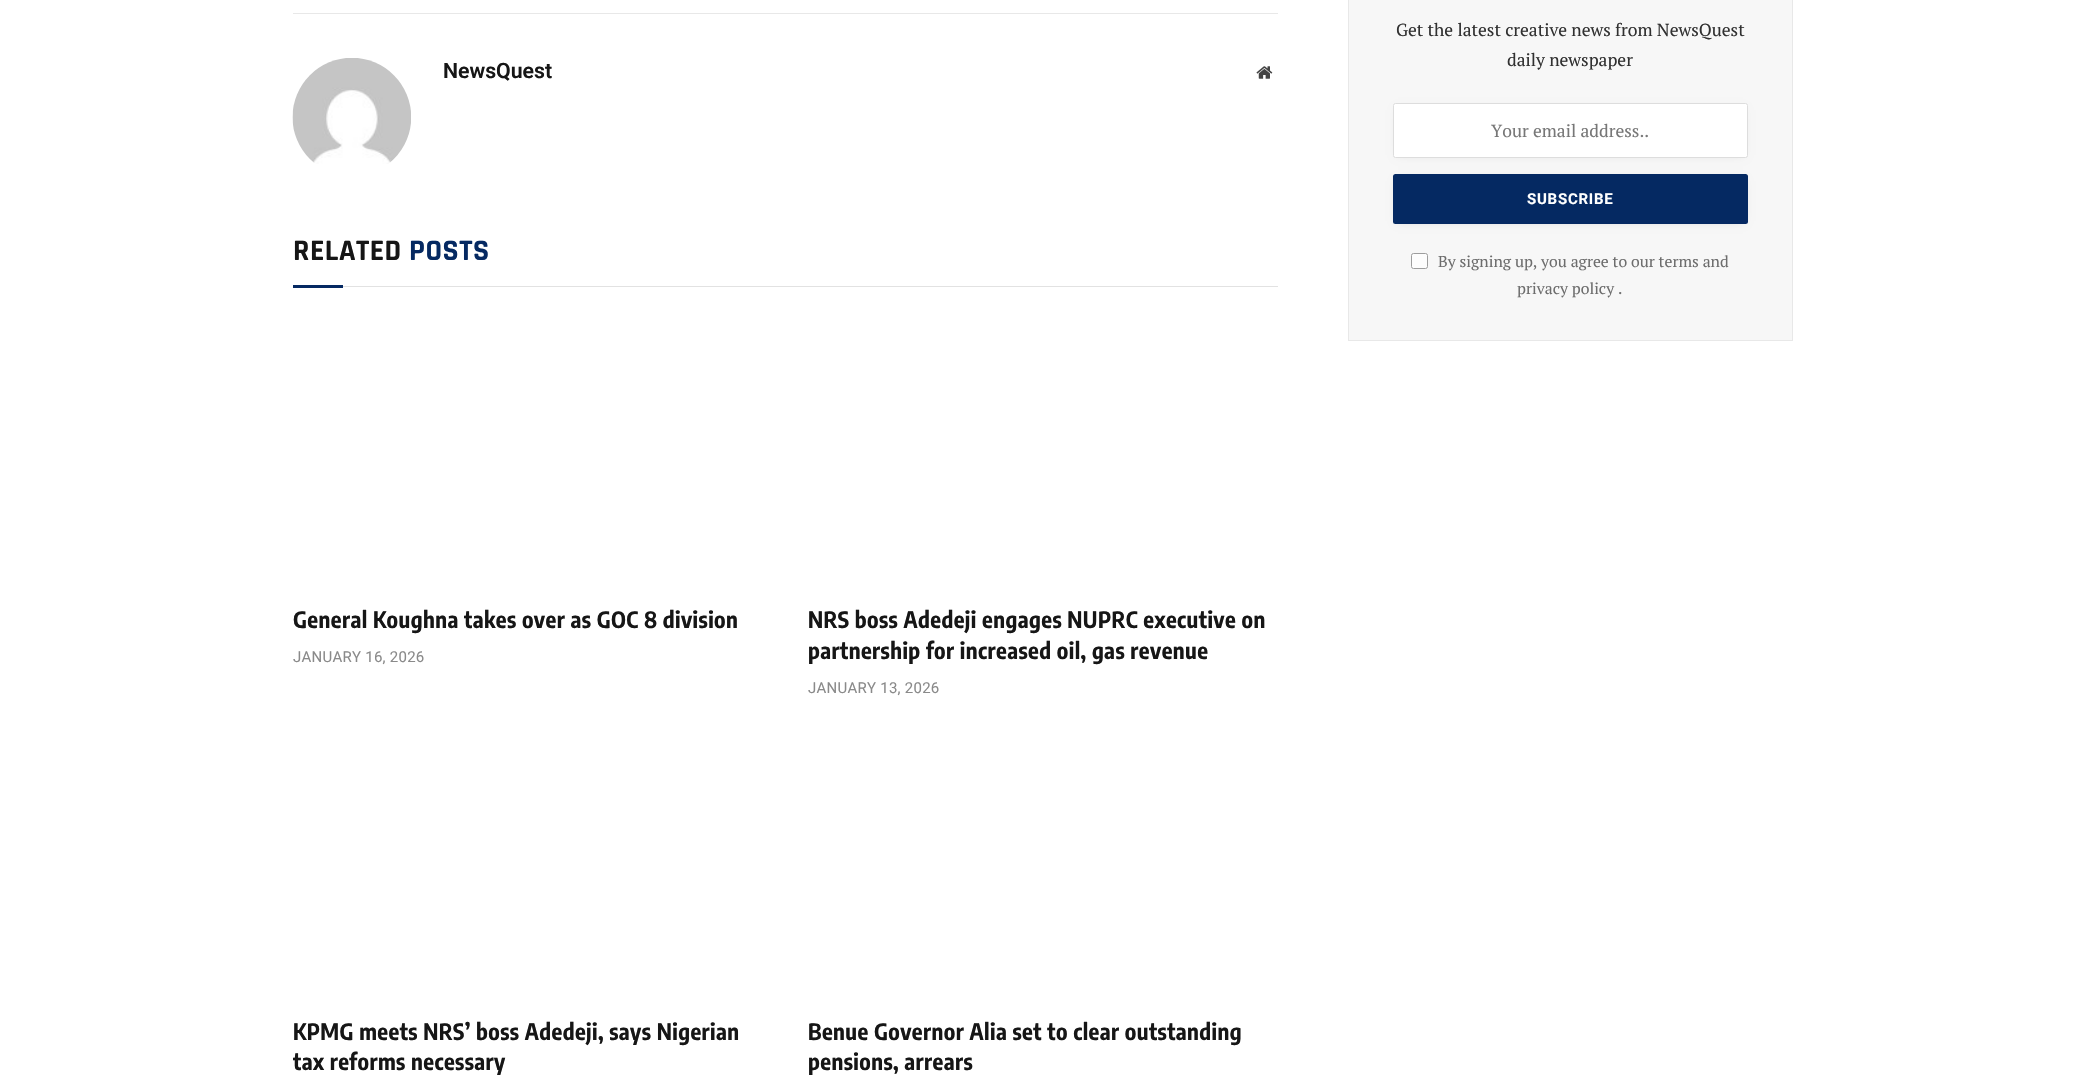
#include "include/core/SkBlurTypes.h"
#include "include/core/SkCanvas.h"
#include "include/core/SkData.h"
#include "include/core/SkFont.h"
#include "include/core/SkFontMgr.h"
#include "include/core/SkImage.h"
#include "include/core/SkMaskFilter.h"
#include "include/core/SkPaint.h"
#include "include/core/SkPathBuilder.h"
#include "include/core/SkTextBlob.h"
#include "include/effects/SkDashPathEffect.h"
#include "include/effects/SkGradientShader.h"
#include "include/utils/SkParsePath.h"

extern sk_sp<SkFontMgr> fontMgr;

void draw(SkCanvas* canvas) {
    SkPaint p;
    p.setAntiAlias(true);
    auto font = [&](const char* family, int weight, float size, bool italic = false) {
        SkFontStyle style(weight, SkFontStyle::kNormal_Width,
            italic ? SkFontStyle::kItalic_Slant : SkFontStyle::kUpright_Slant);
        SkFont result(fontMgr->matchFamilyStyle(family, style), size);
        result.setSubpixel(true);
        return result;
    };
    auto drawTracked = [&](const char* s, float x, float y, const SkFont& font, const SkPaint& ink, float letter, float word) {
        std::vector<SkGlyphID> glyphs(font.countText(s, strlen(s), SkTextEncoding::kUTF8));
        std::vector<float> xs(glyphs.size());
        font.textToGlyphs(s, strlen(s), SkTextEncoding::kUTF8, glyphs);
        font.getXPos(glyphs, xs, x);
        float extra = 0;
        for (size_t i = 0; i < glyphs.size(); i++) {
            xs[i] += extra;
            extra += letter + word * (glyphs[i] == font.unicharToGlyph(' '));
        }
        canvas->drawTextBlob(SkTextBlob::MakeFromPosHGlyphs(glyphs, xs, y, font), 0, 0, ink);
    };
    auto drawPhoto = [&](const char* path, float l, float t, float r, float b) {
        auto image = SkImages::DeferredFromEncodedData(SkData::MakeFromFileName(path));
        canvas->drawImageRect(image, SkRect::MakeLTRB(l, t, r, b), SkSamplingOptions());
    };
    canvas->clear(0xFFFFFFFF);
    p.setColor(0xFFE8E8E8);
    canvas->drawRect(SkRect::MakeLTRB(293, 13, 1278, 14), p);
    drawPhoto("media/1.png", 292, 58, 411, 164);
    auto font1 = font("Roboto", 600, 21.25f);
    p.setColor(0xFF161616);
    canvas->drawString("NewsQuest", 443, 78, font1, p);
    drawPhoto("media/2.png", 1256, 66, 1273, 79);
    p.setColor(0xFFE2E2E2);
    canvas->drawRect(SkRect::MakeLTRB(343, 286, 1278, 287), p);
    auto font2 = font("Rajdhani", 700, 30);
    p.setColor(0xFF161616);
    drawTracked("RELATED", 293, 260, font2, p, 0.5f, 0);
    p.setColor(0xFF052962);
    drawTracked("POSTS", 409, 260, font2, p, 0.5f, 0);
    canvas->drawRect(SkRect::MakeLTRB(293, 285, 343, 288), p);
    auto font3 = font("Encode Sans Condensed", 700, 22.5f);
    p.setColor(0xFF161616);
    drawTracked("General Koughna takes over as GOC 8 division", 293, 628, font3, p, 0.45f, 0);
    auto font4 = font("Roboto", 400, 15);
    p.setColor(0xFF8A8A8A);
    drawTracked("JANUARY 16, 2026", 293, 662, font4, p, 0.25f, 0);
    p.setColor(0xFF161616);
    drawTracked("NRS boss Adedeji engages NUPRC executive on", 808, 628, font3, p, 0.45f, 0);
    drawTracked("partnership for increased oil, gas revenue", 808, 659, font3, p, 0.45f, 0);
    p.setColor(0xFF8A8A8A);
    drawTracked("JANUARY 13, 2026", 808, 693, font4, p, 0.25f, 0);
    p.setColor(0xFF161616);
    {
        const struct { const char* s; float x, y; } items[] = {
            {"KPMG meets NRS’ boss Adedeji, says Nigerian", 293, 1040},
            {"tax reforms necessary", 293, 1070},
            {"Benue Governor Alia set to clear outstanding", 808, 1040},
            {"pensions, arrears", 808, 1070},
        };
        for (auto [s, x, y] : items) {
            drawTracked(s, x, y, font3, p, 0.45f, 0);
        }
    }
    p.setColor(0xFFF7F7F7);
    canvas->drawRect(SkRect::MakeLTRB(1348.5f, -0.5f, 1792.5f, 340.5f), p);
    p.setStyle(SkPaint::kStroke_Style);
    p.setStrokeWidth(1);
    p.setColor(0xFFE8E8E8);
    canvas->drawRect(SkRect::MakeLTRB(1348.5f, -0.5f, 1792.5f, 340.5f), p);
    auto font5 = font("PT Serif", 400, 17.5f);
    p.setStyle(SkPaint::kFill_Style);
    p.setColor(0xFF313131);
    canvas->drawString("Get the latest creative news from NewsQuest", 1396, 36, font5, p);
    canvas->drawString("daily newspaper", 1507, 66, font5, p);
    p.setColor(0x1A000000);
    p.setMaskFilter(SkMaskFilter::MakeBlur(kNormal_SkBlurStyle, 4.5f));
    canvas->drawRect(SkRect::MakeLTRB(1398, 110, 1743, 155), p);
    p.setMaskFilter(nullptr);
    p.setColor(0xFFFFFFFF);
    canvas->drawRoundRect(SkRect::MakeLTRB(1393.5f, 103.5f, 1747.5f, 157.5f), 2, 2, p);
    p.setStyle(SkPaint::kStroke_Style);
    p.setColor(0xFFDDDDDD);
    canvas->drawRoundRect(SkRect::MakeLTRB(1393.5f, 103.5f, 1747.5f, 157.5f), 2, 2, p);
    p.setStyle(SkPaint::kFill_Style);
    p.setColor(0xFF777777);
    canvas->drawString("Your email address..", 1491, 137, font5, p);
    p.setColor(0x29000000);
    p.setMaskFilter(SkMaskFilter::MakeBlur(kNormal_SkBlurStyle, 4.5f));
    canvas->drawRect(SkRect::MakeLTRB(1398, 181, 1743, 221), p);
    p.setMaskFilter(nullptr);
    p.setColor(0xFF052962);
    canvas->drawRoundRect(SkRect::MakeLTRB(1393, 174, 1748, 224), 2.5f, 2.5f, p);
    auto font6 = font("Roboto", 700, 15);
    p.setColor(0xFFFFFFFF);
    drawTracked("SUBSCRIBE", 1527, 204, font6, p, 0.75f, 0);
    p.setColor(0xFFFDFDFD);
    canvas->drawRoundRect(SkRect::MakeLTRB(1411.5f, 253.5f, 1427.5f, 268.5f), 2, 2, p);
    p.setStyle(SkPaint::kStroke_Style);
    p.setColor(0xFF9D9D9D);
    canvas->drawRoundRect(SkRect::MakeLTRB(1411.5f, 253.5f, 1427.5f, 268.5f), 2, 2, p);
    auto font7 = font("PT Serif", 400, 15.75f);
    p.setStyle(SkPaint::kFill_Style);
    p.setColor(0xFF6D6D6D);
    canvas->drawString("By signing up, you agree to our terms and", 1438, 267, font7, p);
    canvas->drawString("privacy policy .", 1517, 294, font7, p);
}
